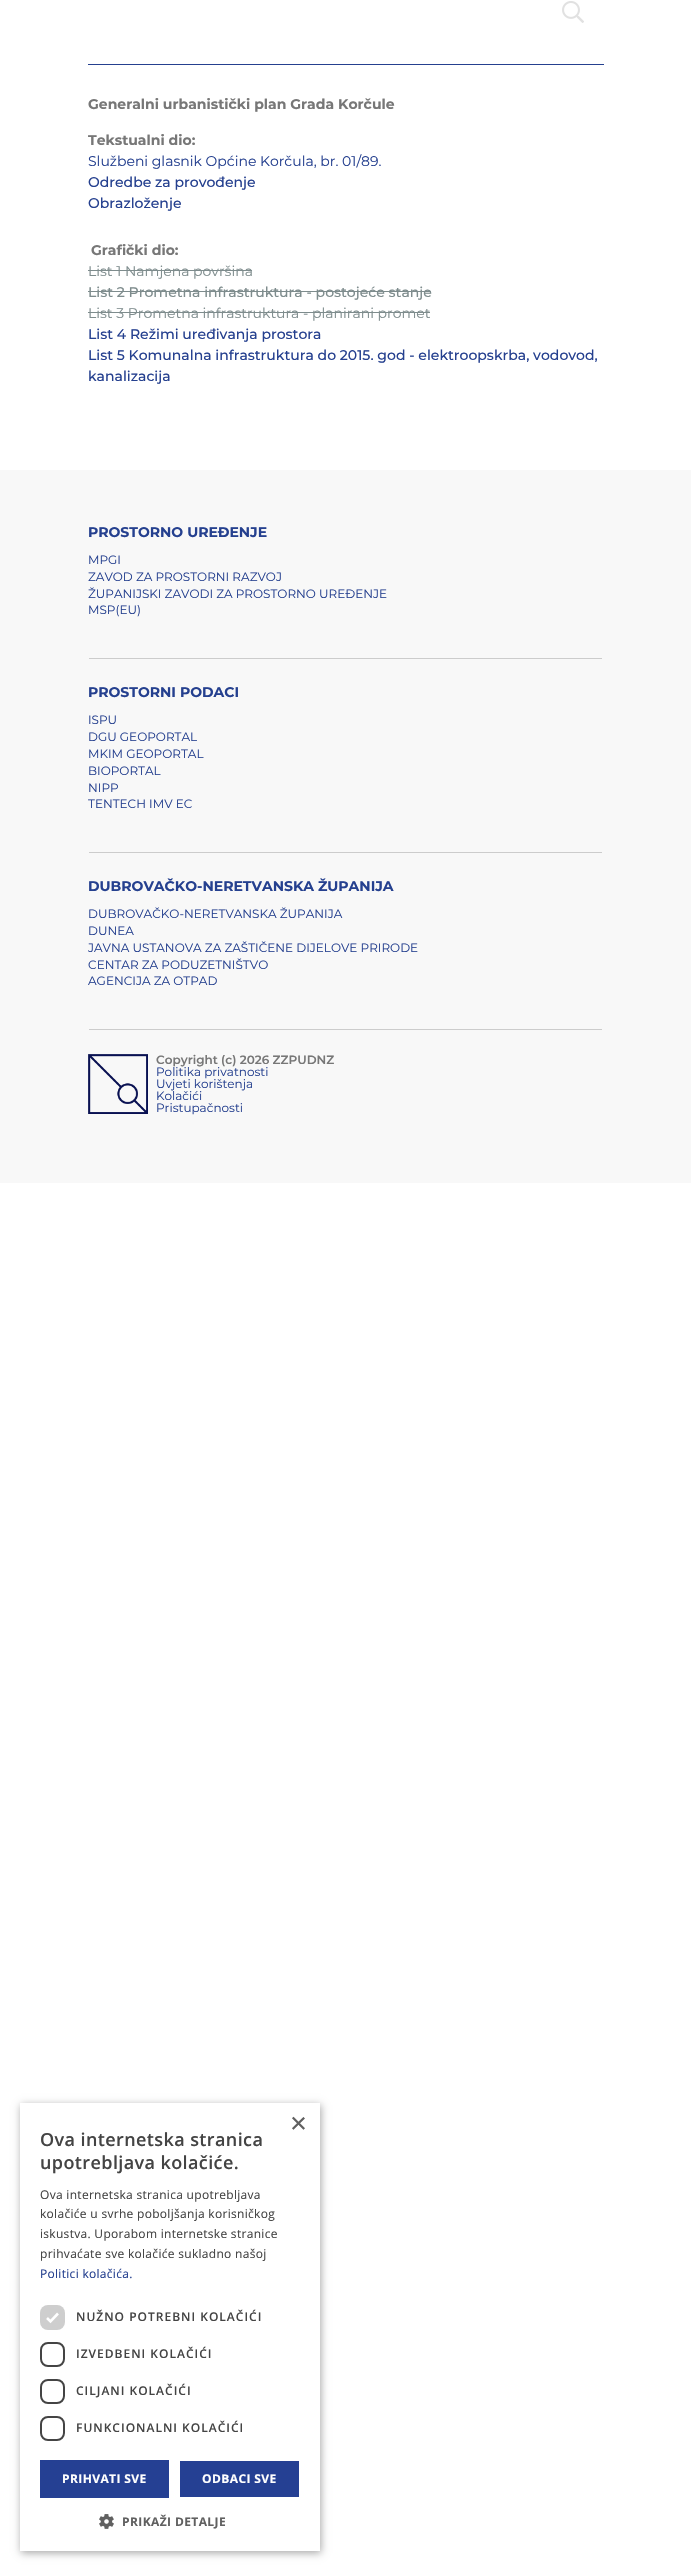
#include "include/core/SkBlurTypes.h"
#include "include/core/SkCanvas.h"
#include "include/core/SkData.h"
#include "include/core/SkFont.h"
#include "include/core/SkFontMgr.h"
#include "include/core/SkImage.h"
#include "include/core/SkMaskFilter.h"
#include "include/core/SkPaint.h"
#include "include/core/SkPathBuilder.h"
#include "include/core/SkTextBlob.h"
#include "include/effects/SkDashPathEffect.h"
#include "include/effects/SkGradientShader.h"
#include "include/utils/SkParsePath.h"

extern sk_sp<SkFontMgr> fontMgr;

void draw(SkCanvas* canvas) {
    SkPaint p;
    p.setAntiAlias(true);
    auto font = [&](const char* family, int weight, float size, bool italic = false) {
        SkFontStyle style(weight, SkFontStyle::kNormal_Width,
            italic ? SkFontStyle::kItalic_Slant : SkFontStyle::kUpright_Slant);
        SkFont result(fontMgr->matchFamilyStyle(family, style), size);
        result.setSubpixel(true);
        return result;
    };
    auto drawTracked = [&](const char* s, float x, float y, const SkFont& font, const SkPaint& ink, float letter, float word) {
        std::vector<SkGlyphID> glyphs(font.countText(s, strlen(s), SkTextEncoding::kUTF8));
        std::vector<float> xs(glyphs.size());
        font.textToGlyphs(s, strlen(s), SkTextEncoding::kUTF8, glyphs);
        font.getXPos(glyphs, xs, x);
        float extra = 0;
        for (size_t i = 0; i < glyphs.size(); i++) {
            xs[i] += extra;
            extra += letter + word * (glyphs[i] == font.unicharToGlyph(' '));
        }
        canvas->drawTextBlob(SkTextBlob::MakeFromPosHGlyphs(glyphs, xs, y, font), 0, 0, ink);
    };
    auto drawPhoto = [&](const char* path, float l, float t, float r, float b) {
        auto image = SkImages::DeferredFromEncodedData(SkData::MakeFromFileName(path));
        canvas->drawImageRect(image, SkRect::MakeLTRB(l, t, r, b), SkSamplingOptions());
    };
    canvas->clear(0xFFFFFFFF);
    drawPhoto("media/1.png", 562, 1, 584, 23);
    p.setColor(0xFF25408F);
    canvas->drawRect(SkRect::MakeLTRB(88, 64, 604, 65), p);
    auto font1 = font("Montserrat", 700, 14);
    p.setColor(0xFF777777);
    canvas->drawString("Generalni urbanistički plan Grada Korčule", 88, 109, font1, p);
    canvas->drawString("Tekstualni dio:", 88, 145, font1, p);
    auto font2 = font("Montserrat", 400, 14);
    p.setColor(0xFF25408F);
    canvas->drawString("Službeni glasnik Općine Korčula, br. 01/89.", 88, 166, font2, p);
    auto font3 = font("Montserrat", 500, 14);
    canvas->drawString("Odredbe za provođenje", 88, 187, font3, p);
    canvas->drawString("Obrazloženje", 88, 208, font3, p);
    p.setColor(0xFF777777);
    canvas->drawString("Grafički dio:", 91, 255, font1, p);
    p.setColor(0xFF7E8C8D);
    canvas->drawString("List 1 Namjena površina", 88, 276, font2, p);
    canvas->drawRect(SkRect::MakeLTRB(88, 270, 252, 271), p);
    canvas->drawString("List 2 Prometna infrastruktura - postojeće stanje", 88, 297, font3, p);
    canvas->drawRect(SkRect::MakeLTRB(88, 291, 431, 292), p);
    canvas->drawString("List 3 Prometna infrastruktura - planirani promet", 88, 318, font2, p);
    canvas->drawRect(SkRect::MakeLTRB(88, 312, 430, 313), p);
    p.setColor(0xFF25408F);
    {
        const struct { const char* s; float x, y; } items[] = {
            {"List 4 Režimi uređivanja prostora", 88, 339},
            {"List 5 Komunalna infrastruktura do 2015. god - elektroopskrba, vodovod,", 88, 360},
            {"kanalizacija", 88, 381},
        };
        for (auto [s, x, y] : items) {
            canvas->drawString(s, x, y, font3, p);
        }
    }
    p.setColor(0xFFF8F8F8);
    canvas->drawRect(SkRect::MakeLTRB(0, 470, 691, 1183), p);
    p.setColor(0xFF25408F);
    canvas->drawString("PROSTORNO UREĐENJE", 88, 537, font1, p);
    auto font4 = font("Montserrat", 400, 12);
    {
        const struct { const char* s; float x, y; } items[] = {
            {"MPGI", 88, 564},
            {"ZAVOD ZA PROSTORNI RAZVOJ", 88, 581},
            {"ŽUPANIJSKI ZAVODI ZA PROSTORNO UREĐENJE", 88, 598},
            {"MSP(EU)", 88, 614},
        };
        for (auto [s, x, y] : items) {
            canvas->drawString(s, x, y, font4, p);
        }
    }
    p.setColor(0xFFCCCCCC);
    canvas->drawRect(SkRect::MakeLTRB(89, 658, 602, 659), p);
    p.setColor(0xFF25408F);
    canvas->drawString("PROSTORNI PODACI", 88, 697, font1, p);
    {
        const struct { const char* s; float x, y; } items[] = {
            {"ISPU", 88, 724},
            {"DGU GEOPORTAL", 88, 741},
            {"MKIM GEOPORTAL", 88, 758},
            {"BIOPORTAL", 88, 775},
            {"NIPP", 88, 792},
            {"TENTECH IMV EC", 88, 808},
        };
        for (auto [s, x, y] : items) {
            canvas->drawString(s, x, y, font4, p);
        }
    }
    p.setColor(0xFFCCCCCC);
    canvas->drawRect(SkRect::MakeLTRB(89, 852, 602, 853), p);
    p.setColor(0xFF25408F);
    canvas->drawString("DUBROVAČKO-NERETVANSKA ŽUPANIJA", 88, 891, font1, p);
    {
        const struct { const char* s; float x, y; } items[] = {
            {"DUBROVAČKO-NERETVANSKA ŽUPANIJA", 88, 918},
            {"DUNEA", 88, 935},
            {"JAVNA USTANOVA ZA ZAŠTIČENE DIJELOVE PRIRODE", 88, 952},
            {"CENTAR ZA PODUZETNIŠTVO", 88, 969},
            {"AGENCIJA ZA OTPAD", 88, 985},
        };
        for (auto [s, x, y] : items) {
            canvas->drawString(s, x, y, font4, p);
        }
    }
    p.setColor(0xFFCCCCCC);
    canvas->drawRect(SkRect::MakeLTRB(89, 1029, 602, 1030), p);
    drawPhoto("media/2.png", 88, 1054, 148, 1114);
    auto font5 = font("Montserrat", 600, 12);
    p.setColor(0xFF777777);
    canvas->drawString("Copyright (c) 2026 ZZPUDNZ", 156, 1064, font5, p);
    p.setColor(0xFF25408F);
    {
        const struct { const char* s; float x, y; } items[] = {
            {"Politika privatnosti", 156, 1076},
            {"Uvjeti korištenja", 156, 1088},
            {"Kolačići", 156, 1100},
            {"Pristupačnosti", 156, 1112},
        };
        for (auto [s, x, y] : items) {
            canvas->drawString(s, x, y, font4, p);
        }
    }
    canvas->save();
    canvas->clipPath(SkPathBuilder(SkPathFillType::kEvenOdd).moveTo(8, 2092).lineTo(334, 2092).lineTo(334, 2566).lineTo(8, 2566).close().moveTo(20, 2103).lineTo(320, 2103).lineTo(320, 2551).lineTo(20, 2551).close().detach(), true);
    p.setColor(0x59000000);
    p.setMaskFilter(SkMaskFilter::MakeBlur(kNormal_SkBlurStyle, 4));
    canvas->drawRect(SkRect::MakeLTRB(21, 2105, 321, 2553), p);
    p.setMaskFilter(nullptr);
    canvas->restore();
    auto font6 = font("Liberation Sans", 400, 29);
    p.setColor(0xFF606060);
    canvas->drawString("×", 290, 2133, font6, p);
    auto font7 = font("Open Sans", 600, 18);
    p.setColor(0xFF444444);
    drawTracked("Ova internetska stranica", 40, 2146, font7, p, 0.4f, 0);
    drawTracked("upotrebljava kolačiće.", 40, 2169, font7, p, 0.4f, 0);
    auto font8 = font("Open Sans", 400, 12);
    {
        const struct { const char* s; float x, y; } items[] = {
            {"Ova internetska stranica upotrebljava", 40, 2199},
            {"kolačiće u svrhe poboljšanja korisničkog", 40, 2218},
            {"iskustva. Uporabom internetske stranice", 40, 2238},
            {"prihvaćate sve kolačiće sukladno našoj", 40, 2258},
        };
        for (auto [s, x, y] : items) {
            drawTracked(s, x, y, font8, p, 0.3f, 0);
        }
    }
    p.setColor(0xFF25408F);
    drawTracked("Politici kolačića.", 40, 2278, font8, p, 0.3f, 0);
    p.setColor(0xFFCECECE);
    canvas->drawRoundRect(SkRect::MakeLTRB(40, 2305, 65, 2330), 8, 8, p);
    p.setStyle(SkPaint::kStroke_Style);
    p.setStrokeWidth(2.6f);
    p.setColor(0xFFFFFFFF);
    canvas->drawPath(SkPathBuilder().moveTo(47, 2318).lineTo(50.5f, 2321.5f).lineTo(58, 2313.5f).detach(), p);
    auto font9 = font("Open Sans", 600, 12);
    p.setStyle(SkPaint::kFill_Style);
    p.setColor(0xFF444444);
    drawTracked("NUŽNO POTREBNI KOLAČIĆI", 76, 2321, font9, p, 1, 0);
    p.setStyle(SkPaint::kStroke_Style);
    p.setStrokeWidth(2);
    canvas->drawRoundRect(SkRect::MakeLTRB(41, 2343, 64, 2366), 7, 7, p);
    p.setStyle(SkPaint::kFill_Style);
    drawTracked("IZVEDBENI KOLAČIĆI", 76, 2358, font9, p, 1, 0);
    p.setStyle(SkPaint::kStroke_Style);
    canvas->drawRoundRect(SkRect::MakeLTRB(41, 2380, 64, 2403), 7, 7, p);
    p.setStyle(SkPaint::kFill_Style);
    drawTracked("CILJANI KOLAČIĆI", 76, 2395, font9, p, 1, 0);
    p.setStyle(SkPaint::kStroke_Style);
    canvas->drawRoundRect(SkRect::MakeLTRB(41, 2417, 64, 2440), 7, 7, p);
    p.setStyle(SkPaint::kFill_Style);
    drawTracked("FUNKCIONALNI KOLAČIĆI", 76, 2432, font9, p, 1, 0);
    p.setColor(0xFF254093);
    canvas->drawRect(SkRect::MakeLTRB(40, 2460, 169, 2498), p);
    auto font10 = font("Open Sans", 700, 12);
    p.setColor(0xFFFFFFFF);
    drawTracked("PRIHVATI SVE", 62, 2483, font10, p, 0.4f, 0);
    p.setColor(0xFF254093);
    canvas->drawRect(SkRect::MakeLTRB(180, 2461, 299, 2497), p);
    p.setColor(0xFFFFFFFF);
    drawTracked("ODBACI SVE", 202, 2483, font10, p, 0.4f, 0);
    drawPhoto("media/3.png", 99, 2514, 114, 2529);
    p.setColor(0xFF606060);
    drawTracked("PRIKAŽI DETALJE", 122, 2526, font10, p, 0.4f, 0);
}
